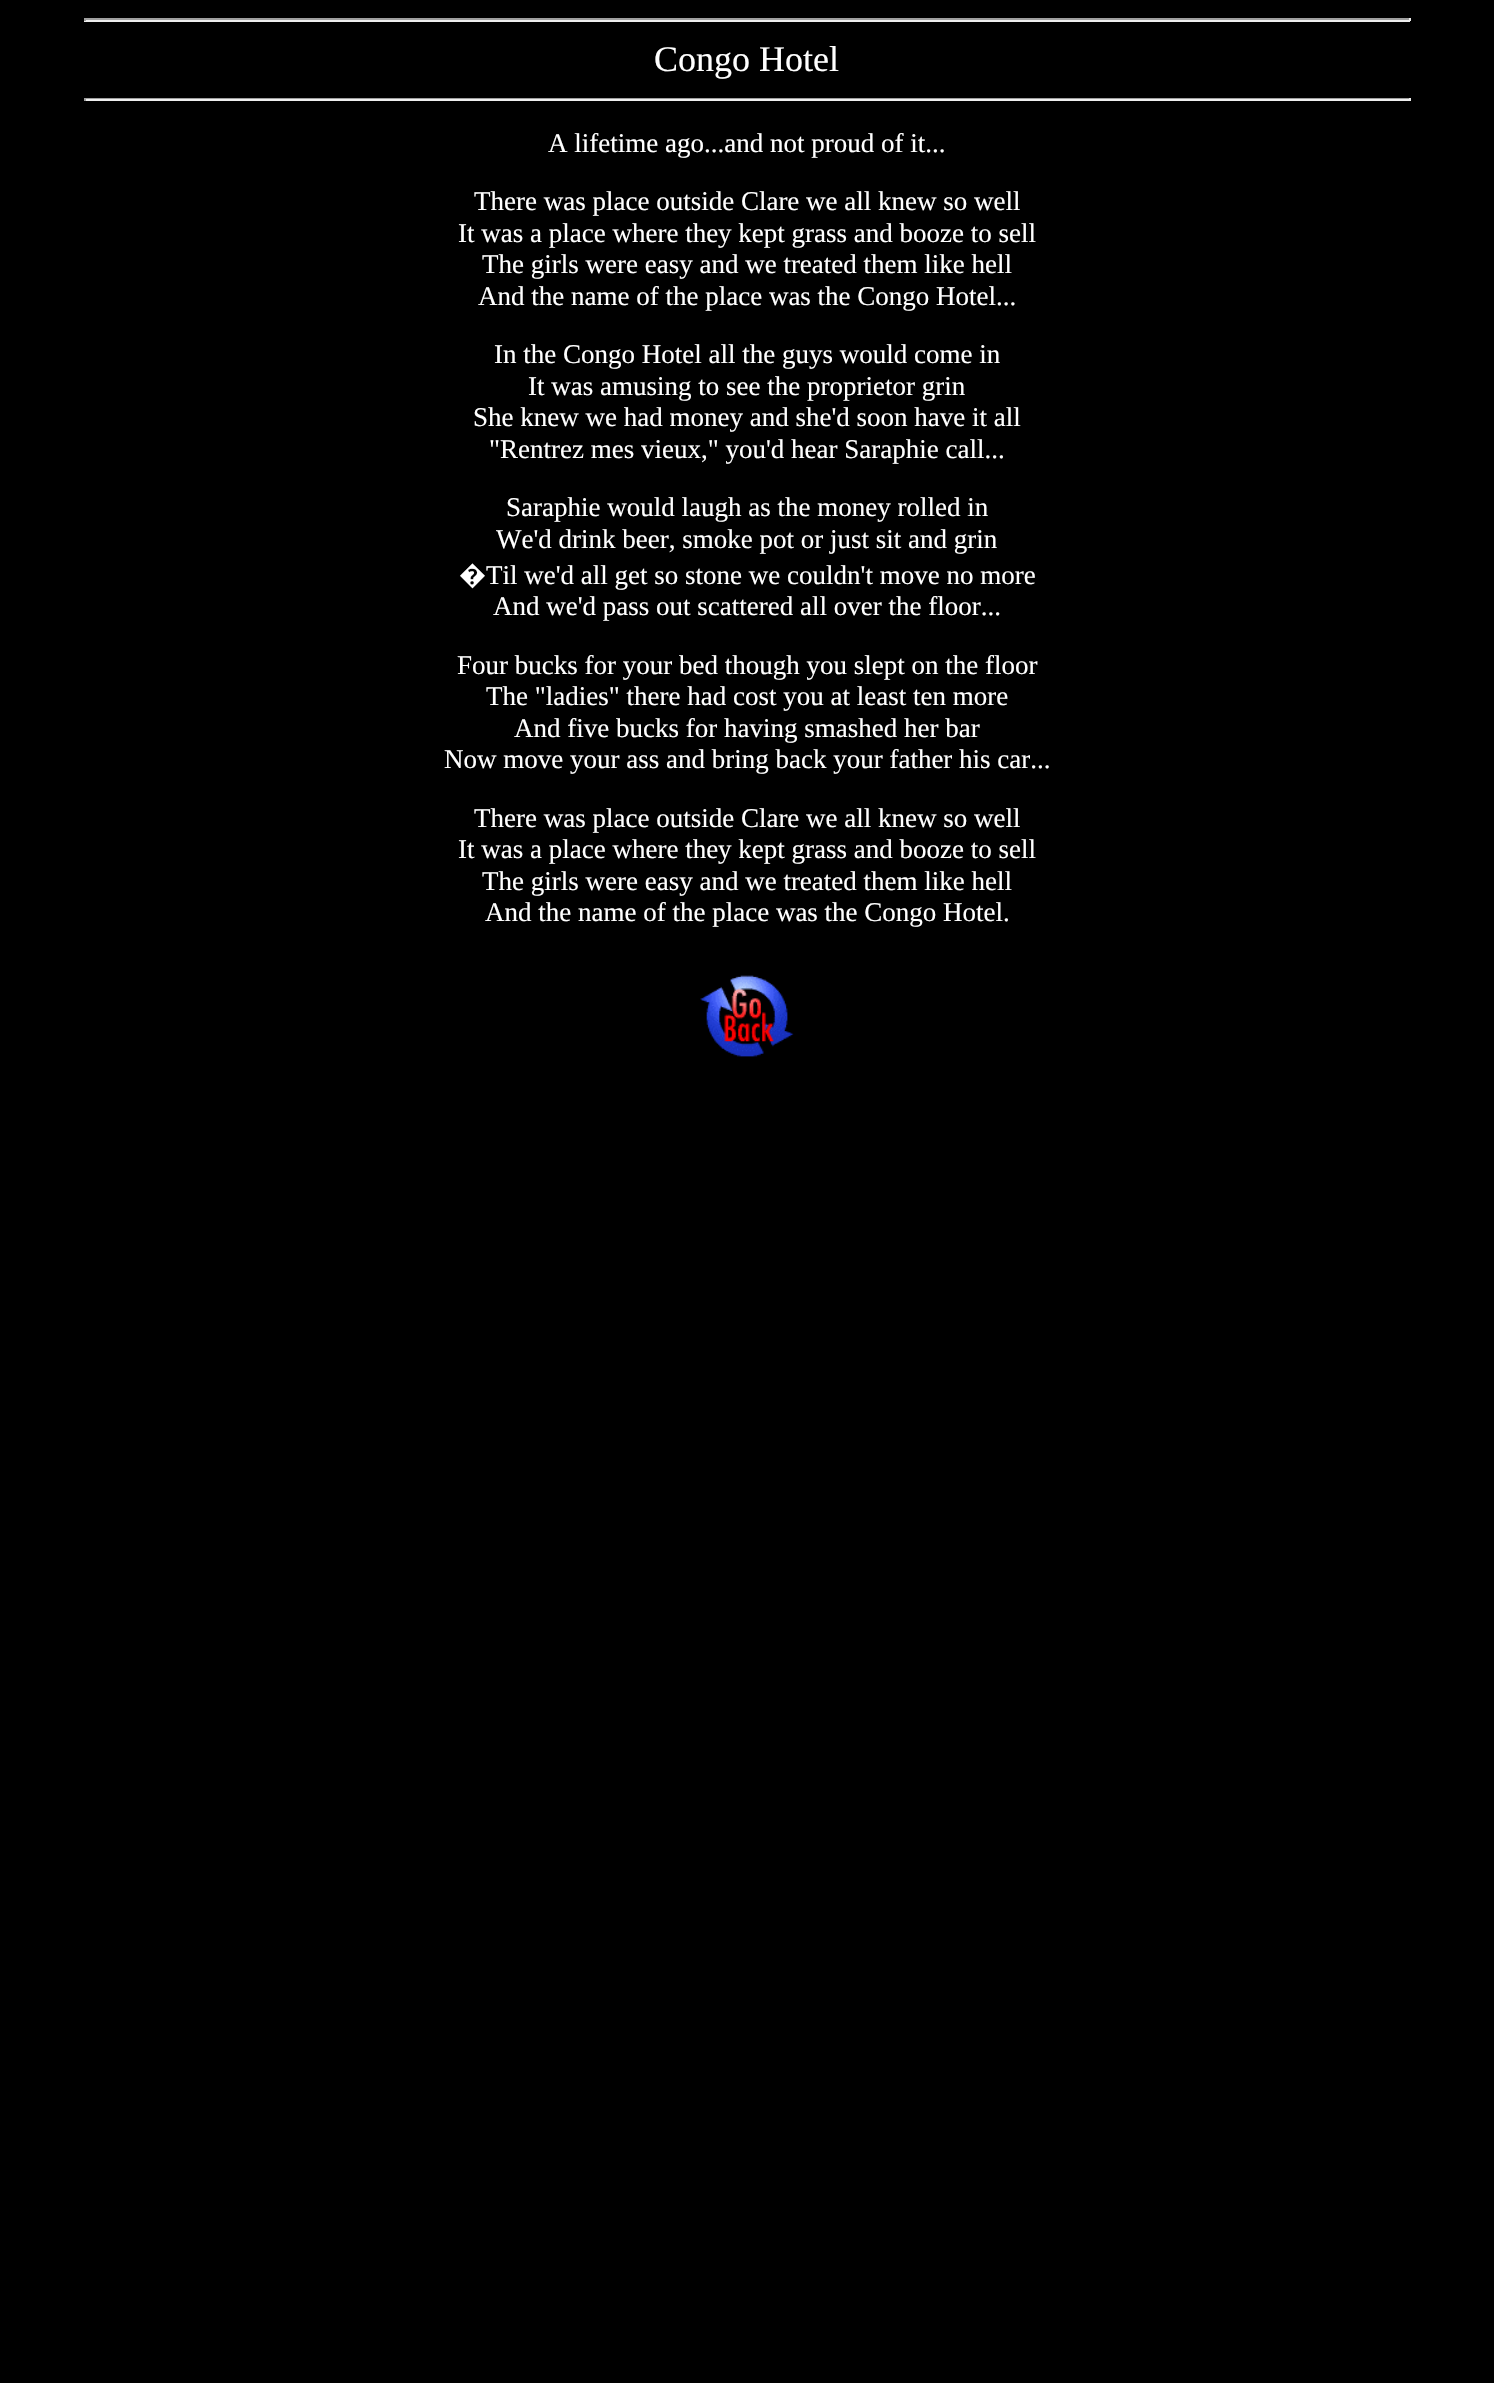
#include "include/core/SkBlurTypes.h"
#include "include/core/SkCanvas.h"
#include "include/core/SkData.h"
#include "include/core/SkFont.h"
#include "include/core/SkFontMgr.h"
#include "include/core/SkImage.h"
#include "include/core/SkMaskFilter.h"
#include "include/core/SkPaint.h"
#include "include/core/SkPathBuilder.h"
#include "include/core/SkTextBlob.h"
#include "include/effects/SkDashPathEffect.h"
#include "include/effects/SkGradientShader.h"
#include "include/utils/SkParsePath.h"

extern sk_sp<SkFontMgr> fontMgr;

void draw(SkCanvas* canvas) {
    SkPaint p;
    p.setAntiAlias(true);
    auto font = [&](const char* family, int weight, float size, bool italic = false) {
        SkFontStyle style(weight, SkFontStyle::kNormal_Width,
            italic ? SkFontStyle::kItalic_Slant : SkFontStyle::kUpright_Slant);
        SkFont result(fontMgr->matchFamilyStyle(family, style), size);
        result.setSubpixel(true);
        return result;
    };
    auto drawPhoto = [&](const char* path, float l, float t, float r, float b) {
        auto image = SkImages::DeferredFromEncodedData(SkData::MakeFromFileName(path));
        canvas->drawImageRect(image, SkRect::MakeLTRB(l, t, r, b), SkSamplingOptions());
    };
    canvas->clear(0xFF000000);
    {
        const struct { float l, t, r, b; SkColor color; } items[] = {
            {84, 18, 1410, 20, 0xFF9F9F9F},
            {1409, 18, 1411, 21, 0xFFEEEEEE},
            {84, 20, 1410, 22, 0xFFEEEEEE},
            {84, 18, 86, 21, 0xFF9F9F9F},
        };
        for (auto [l, t, r, b, color] : items) {
            p.setColor(color);
            canvas->drawRect(SkRect::MakeLTRB(l, t, r, b), p);
        }
    }
    auto font1 = font("Liberation Serif", 400, 36);
    p.setColor(0xFFFFFFFF);
    canvas->drawString("Congo Hotel", 654, 71, font1, p);
    {
        const struct { float l, t, r, b; SkColor color; } items[] = {
            {84, 98, 1410, 99, 0xFF9F9F9F},
            {1409, 98, 1411, 101, 0xFFEEEEEE},
            {84, 99, 1410, 101, 0xFFEEEEEE},
            {84, 98, 86, 101, 0xFF9F9F9F},
        };
        for (auto [l, t, r, b, color] : items) {
            p.setColor(color);
            canvas->drawRect(SkRect::MakeLTRB(l, t, r, b), p);
        }
    }
    auto font2 = font("Liberation Serif", 400, 27);
    p.setColor(0xFFFFFFFF);
    {
        const struct { const char* s; float x, y; } items[] = {
            {"A lifetime ago...and not proud of it...", 548, 152},
            {"There was place outside Clare we all knew so well", 474, 210},
            {"It was a place where they kept grass and booze to sell", 458, 242},
            {"The girls were easy and we treated them like hell", 482, 273},
            {"And the name of the place was the Congo Hotel...", 478, 305},
            {"In the Congo Hotel all the guys would come in", 494, 363},
            {"It was amusing to see the proprietor grin", 528, 395},
            {"She knew we had money and she'd soon have it all", 473, 426},
            {"\"Rentrez mes vieux,\" you'd hear Saraphie call...", 489, 458},
            {"Saraphie would laugh as the money rolled in", 506, 516},
            {"We'd drink beer, smoke pot or just sit and grin", 496, 548},
        };
        for (auto [s, x, y] : items) {
            canvas->drawString(s, x, y, font2, p);
        }
    }
    auto font3 = font("Noto Sans", 400, 27);
    canvas->drawString("�", 459, 584, font3, p);
    {
        const struct { const char* s; float x, y; } items[] = {
            {"Til we'd all get so stone we couldn't move no more", 486, 584},
            {"And we'd pass out scattered all over the floor...", 493, 615},
            {"Four bucks for your bed though you slept on the floor", 457, 674},
            {"The \"ladies\" there had cost you at least ten more", 486, 705},
            {"And five bucks for having smashed her bar", 514, 737},
            {"Now move your ass and bring back your father his car...", 444, 768},
            {"There was place outside Clare we all knew so well", 474, 827},
            {"It was a place where they kept grass and booze to sell", 458, 858},
            {"The girls were easy and we treated them like hell", 482, 890},
            {"And the name of the place was the Congo Hotel.", 485, 921},
        };
        for (auto [s, x, y] : items) {
            canvas->drawString(s, x, y, font2, p);
        }
    }
    drawPhoto("media/1.png", 700, 975, 794, 1057);
}
